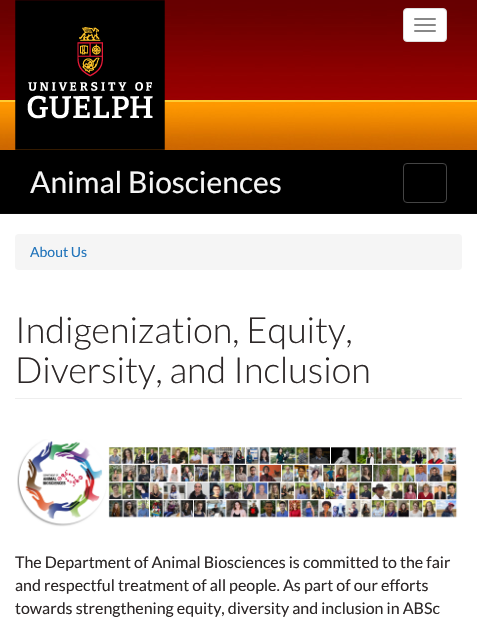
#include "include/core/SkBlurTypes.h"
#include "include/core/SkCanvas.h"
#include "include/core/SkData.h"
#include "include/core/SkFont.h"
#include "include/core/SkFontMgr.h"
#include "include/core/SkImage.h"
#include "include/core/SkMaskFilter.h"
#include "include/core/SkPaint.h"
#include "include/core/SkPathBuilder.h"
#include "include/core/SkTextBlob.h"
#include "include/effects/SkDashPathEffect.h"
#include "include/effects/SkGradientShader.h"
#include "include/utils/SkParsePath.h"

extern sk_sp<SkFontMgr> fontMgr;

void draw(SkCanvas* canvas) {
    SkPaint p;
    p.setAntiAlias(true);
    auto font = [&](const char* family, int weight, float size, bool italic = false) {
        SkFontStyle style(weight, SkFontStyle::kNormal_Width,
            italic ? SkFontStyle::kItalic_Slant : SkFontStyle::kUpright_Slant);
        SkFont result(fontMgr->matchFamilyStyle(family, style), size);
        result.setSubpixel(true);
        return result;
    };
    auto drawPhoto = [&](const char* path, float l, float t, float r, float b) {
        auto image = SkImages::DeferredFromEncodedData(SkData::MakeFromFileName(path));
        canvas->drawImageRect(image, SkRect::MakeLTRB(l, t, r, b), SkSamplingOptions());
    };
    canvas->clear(0xFFFFFFFF);
    drawPhoto("media/1.png", 0, 0, 477, 150);
    drawPhoto("media/2.png", 15, 0, 462, 150);
    drawPhoto("media/3.png", 15, 0, 165, 150);
    p.setColor(0xFFFFFFFF);
    canvas->drawRoundRect(SkRect::MakeLTRB(403.5f, 8.5f, 446.5f, 41.5f), 3.5f, 3.5f, p);
    p.setStyle(SkPaint::kStroke_Style);
    p.setStrokeWidth(1);
    p.setColor(0xFFDDDDDD);
    canvas->drawRoundRect(SkRect::MakeLTRB(403.5f, 8.5f, 446.5f, 41.5f), 3.5f, 3.5f, p);
    p.setStyle(SkPaint::kFill_Style);
    p.setColor(0xFF888888);
    canvas->drawRoundRect(SkRect::MakeLTRB(414, 18, 436, 20), 1, 1, p);
    canvas->drawRoundRect(SkRect::MakeLTRB(414, 24, 436, 26), 1, 1, p);
    canvas->drawRoundRect(SkRect::MakeLTRB(414, 30, 436, 32), 1, 1, p);
    p.setColor(0xFF000000);
    canvas->drawRect(SkRect::MakeLTRB(0, 150, 477, 213), p);
    p.setColor(0xFF080808);
    canvas->drawRect(SkRect::MakeLTRB(0, 213, 477, 214), p);
    auto font1 = font("Lato", 400, 30);
    p.setColor(0xFFF5F5F5);
    canvas->drawString("Animal Biosciences", 30, 193, font1, p);
    p.setStyle(SkPaint::kStroke_Style);
    p.setColor(0xFF444444);
    canvas->drawRoundRect(SkRect::MakeLTRB(403.5f, 163.5f, 446.5f, 202.5f), 3.5f, 3.5f, p);
    p.setStyle(SkPaint::kFill_Style);
    p.setColor(0xFFF5F5F5);
    canvas->drawRoundRect(SkRect::MakeLTRB(15, 234, 462, 270), 4, 4, p);
    auto font2 = font("Lato", 400, 14);
    p.setColor(0xFF2174BB);
    canvas->drawString("About Us", 30, 257, font2, p);
    p.setColor(0xFFEEEEEE);
    canvas->drawRect(SkRect::MakeLTRB(15, 398, 462, 399), p);
    auto font3 = font("Lato", 300, 36);
    p.setColor(0xFF2C2727);
    canvas->drawString("Indigenization, Equity,", 15, 343, font3, p);
    canvas->drawString("Diversity, and Inclusion", 15, 383, font3, p);
    drawPhoto("media/4.png", 17, 439, 458, 527);
    auto font4 = font("Lato", 400, 16);
    {
        const struct { const char* s; float x, y; } items[] = {
            {"The Department of Animal Biosciences is committed to the fair", 15, 568},
            {"and respectful treatment of all people. As part of our efforts", 15, 591},
            {"towards strengthening equity, diversity and inclusion in ABSc", 15, 614},
        };
        for (auto [s, x, y] : items) {
            canvas->drawString(s, x, y, font4, p);
        }
    }
}
